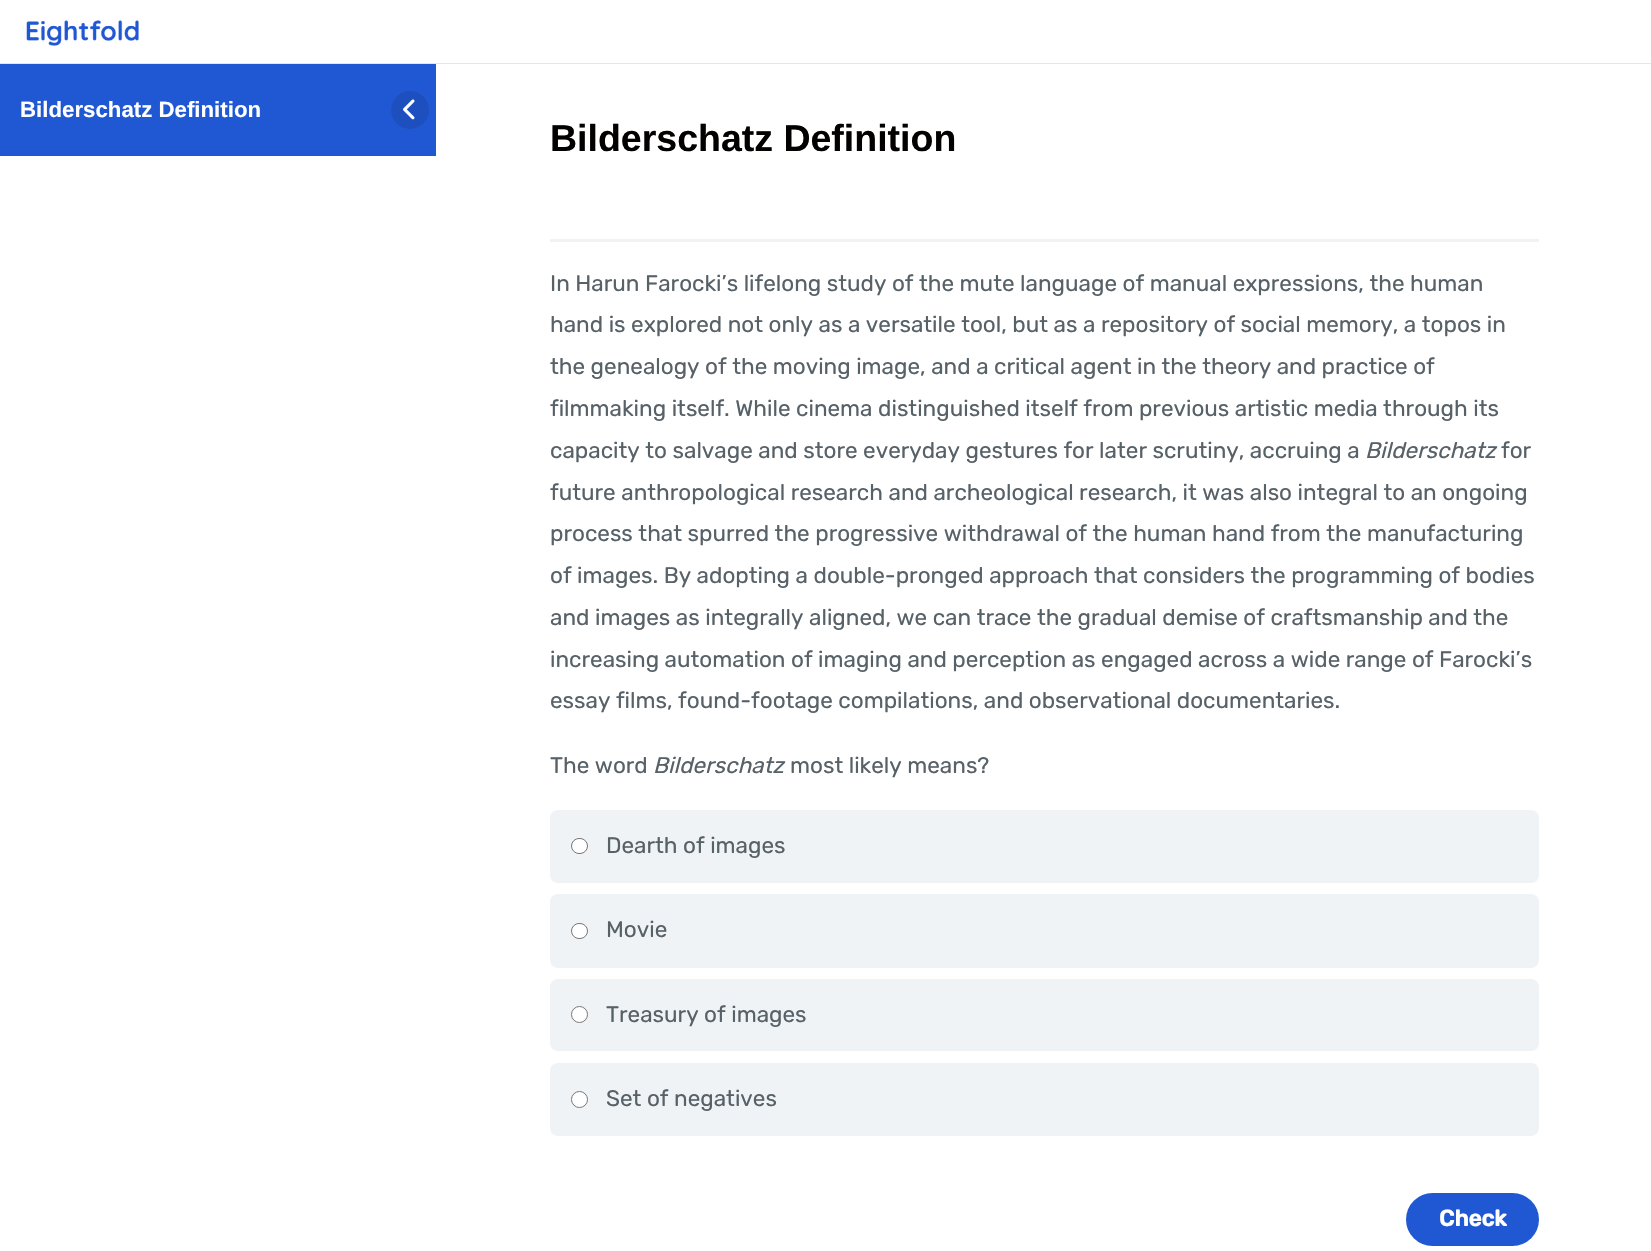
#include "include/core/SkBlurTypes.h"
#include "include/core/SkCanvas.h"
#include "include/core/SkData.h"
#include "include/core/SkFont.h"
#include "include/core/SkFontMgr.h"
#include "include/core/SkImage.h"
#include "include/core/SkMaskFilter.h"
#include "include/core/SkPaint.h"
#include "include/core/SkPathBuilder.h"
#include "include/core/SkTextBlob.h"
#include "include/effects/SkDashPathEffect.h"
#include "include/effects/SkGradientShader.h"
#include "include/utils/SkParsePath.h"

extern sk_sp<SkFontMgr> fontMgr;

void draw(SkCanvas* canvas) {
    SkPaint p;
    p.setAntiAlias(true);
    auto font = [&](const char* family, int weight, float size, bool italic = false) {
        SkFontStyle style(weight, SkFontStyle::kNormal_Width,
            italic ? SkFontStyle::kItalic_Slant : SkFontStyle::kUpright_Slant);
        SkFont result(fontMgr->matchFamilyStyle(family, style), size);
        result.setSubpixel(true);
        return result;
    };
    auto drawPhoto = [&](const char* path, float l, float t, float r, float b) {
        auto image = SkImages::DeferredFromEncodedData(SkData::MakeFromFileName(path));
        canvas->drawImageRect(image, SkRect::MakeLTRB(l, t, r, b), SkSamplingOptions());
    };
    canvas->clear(0xFFFFFFFF);
    p.setColor(0xFF2058D3);
    canvas->drawRect(SkRect::MakeLTRB(0, 64, 436, 156), p);
    auto font1 = font("Liberation Sans", 700, 22.25f);
    p.setColor(0xFFFFFFFF);
    canvas->drawString("Bilderschatz Definition", 20, 117, font1, p);
    p.setColor(0xFF1D4FBE);
    canvas->drawCircle(410, 110, 19, p);
    drawPhoto("media/1.png", 403, 99, 415, 120);
    p.setColor(0xFFE2E7ED);
    canvas->drawRect(SkRect::MakeLTRB(0, 63, 1651, 64), p);
    drawPhoto("media/2.png", 26, 20, 139, 46);
    auto font2 = font("Liberation Sans", 700, 37.5f);
    p.setColor(0xFF030000);
    canvas->drawString("Bilderschatz Definition", 550, 151, font2, p);
    p.setColor(0xFFF2F2F2);
    canvas->drawRect(SkRect::MakeLTRB(550, 239, 1539, 242), p);
    auto font3 = font("Rubik", 400, 22.5f);
    p.setColor(0xFF576168);
    {
        const struct { const char* s; float x, y; } items[] = {
            {"In Harun Farocki’s lifelong study of the mute language of manual expressions, the human", 550, 291},
            {"hand is explored not only as a versatile tool, but as a repository of social memory, a topos in", 550, 332},
            {"the genealogy of the moving image, and a critical agent in the theory and practice of", 550, 374},
            {"filmmaking itself. While cinema distinguished itself from previous artistic media through its", 550, 416},
            {"capacity to salvage and store everyday gestures for later scrutiny, accruing a", 550, 458},
        };
        for (auto [s, x, y] : items) {
            canvas->drawString(s, x, y, font3, p);
        }
    }
    auto font4 = font("Rubik", 400, 22.5f, true);
    canvas->drawString("Bilderschatz", 1365, 458, font4, p);
    {
        const struct { const char* s; float x, y; } items[] = {
            {"for", 1501, 458},
            {"future anthropological research and archeological research, it was also integral to an ongoing", 550, 500},
            {"process that spurred the progressive withdrawal of the human hand from the manufacturing", 550, 541},
            {"of images. By adopting a double-pronged approach that considers the programming of bodies", 550, 583},
            {"and images as integrally aligned, we can trace the gradual demise of craftsmanship and the", 550, 625},
            {"increasing automation of imaging and perception as engaged across a wide range of Farocki’s", 550, 667},
            {"essay films, found-footage compilations, and observational documentaries.", 550, 708},
            {"The word", 550, 773},
        };
        for (auto [s, x, y] : items) {
            canvas->drawString(s, x, y, font3, p);
        }
    }
    canvas->drawString("Bilderschatz", 653, 773, font4, p);
    canvas->drawString("most likely means?", 790, 773, font3, p);
    p.setColor(0xFFF0F3F6);
    canvas->drawRoundRect(SkRect::MakeLTRB(550, 810, 1539, 883), 8, 8, p);
    p.setColor(0xFFFFFFFF);
    canvas->drawRoundRect(SkRect::MakeLTRB(571.5f, 838.5f, 587.5f, 853.5f), 7.5f, 7.5f, p);
    p.setStyle(SkPaint::kStroke_Style);
    p.setStrokeWidth(1);
    p.setColor(0xFF767676);
    canvas->drawRoundRect(SkRect::MakeLTRB(571.5f, 838.5f, 587.5f, 853.5f), 7.5f, 7.5f, p);
    p.setStyle(SkPaint::kFill_Style);
    p.setColor(0xFF576168);
    canvas->drawString("Dearth of images", 606, 853, font3, p);
    p.setColor(0xFFF0F3F6);
    canvas->drawRoundRect(SkRect::MakeLTRB(550, 894, 1539, 968), 8, 8, p);
    p.setColor(0xFFFFFFFF);
    canvas->drawRoundRect(SkRect::MakeLTRB(571.5f, 923.5f, 587.5f, 938.5f), 7.5f, 7.5f, p);
    p.setStyle(SkPaint::kStroke_Style);
    p.setColor(0xFF767676);
    canvas->drawRoundRect(SkRect::MakeLTRB(571.5f, 923.5f, 587.5f, 938.5f), 7.5f, 7.5f, p);
    p.setStyle(SkPaint::kFill_Style);
    p.setColor(0xFF576168);
    canvas->drawString("Movie", 606, 937, font3, p);
    p.setColor(0xFFF0F3F6);
    canvas->drawRoundRect(SkRect::MakeLTRB(550, 979, 1539, 1051), 8, 8, p);
    p.setColor(0xFFFFFFFF);
    canvas->drawCircle(579.5f, 1014.5f, 8, p);
    p.setStyle(SkPaint::kStroke_Style);
    p.setColor(0xFF767676);
    canvas->drawCircle(579.5f, 1014.5f, 8, p);
    p.setStyle(SkPaint::kFill_Style);
    p.setColor(0xFF576168);
    canvas->drawString("Treasury of images", 606, 1022, font3, p);
    p.setColor(0xFFF0F3F6);
    canvas->drawRoundRect(SkRect::MakeLTRB(550, 1063, 1539, 1136), 8, 8, p);
    p.setColor(0xFFFFFFFF);
    canvas->drawCircle(579.5f, 1099.5f, 8, p);
    p.setStyle(SkPaint::kStroke_Style);
    p.setColor(0xFF767676);
    canvas->drawCircle(579.5f, 1099.5f, 8, p);
    p.setStyle(SkPaint::kFill_Style);
    p.setColor(0xFF576168);
    canvas->drawString("Set of negatives", 606, 1106, font3, p);
    p.setColor(0xFF2058D3);
    canvas->drawRoundRect(SkRect::MakeLTRB(1406, 1193, 1539, 1246), 26.5f, 26.5f, p);
    auto font5 = font("Rubik", 700, 22.5f);
    p.setColor(0xFFFFFFFF);
    canvas->drawString("Check", 1439, 1226, font5, p);
}
